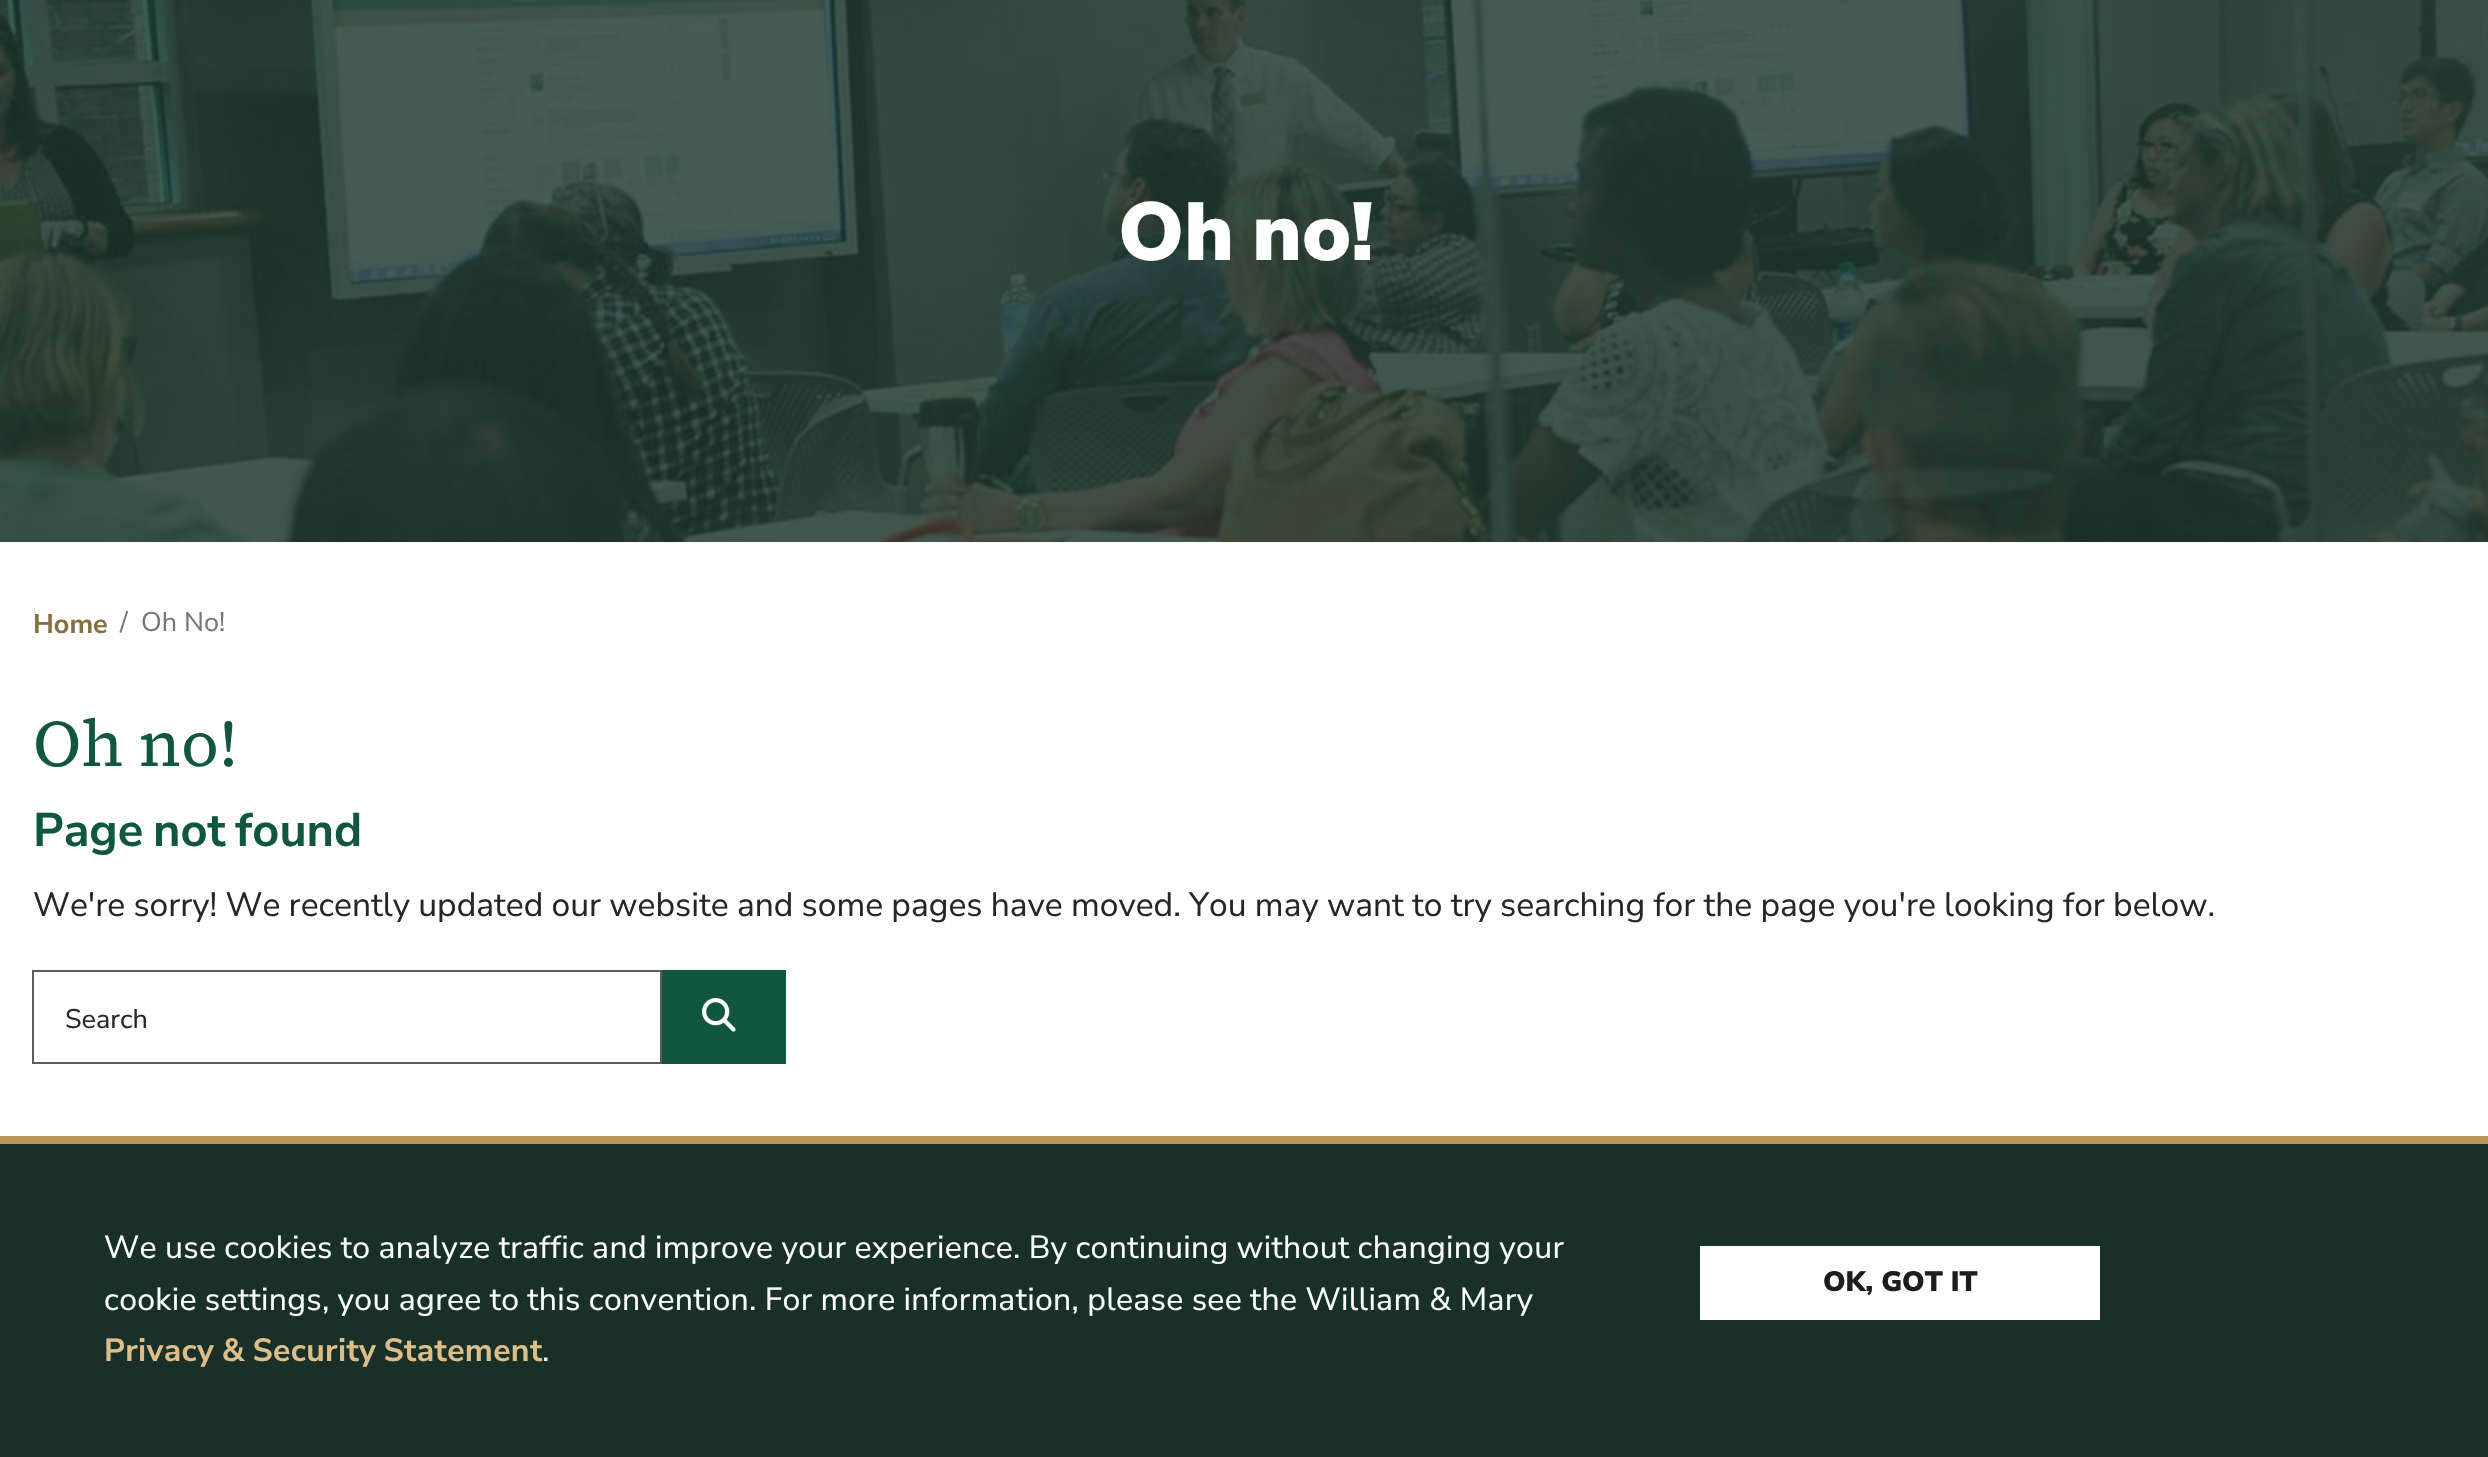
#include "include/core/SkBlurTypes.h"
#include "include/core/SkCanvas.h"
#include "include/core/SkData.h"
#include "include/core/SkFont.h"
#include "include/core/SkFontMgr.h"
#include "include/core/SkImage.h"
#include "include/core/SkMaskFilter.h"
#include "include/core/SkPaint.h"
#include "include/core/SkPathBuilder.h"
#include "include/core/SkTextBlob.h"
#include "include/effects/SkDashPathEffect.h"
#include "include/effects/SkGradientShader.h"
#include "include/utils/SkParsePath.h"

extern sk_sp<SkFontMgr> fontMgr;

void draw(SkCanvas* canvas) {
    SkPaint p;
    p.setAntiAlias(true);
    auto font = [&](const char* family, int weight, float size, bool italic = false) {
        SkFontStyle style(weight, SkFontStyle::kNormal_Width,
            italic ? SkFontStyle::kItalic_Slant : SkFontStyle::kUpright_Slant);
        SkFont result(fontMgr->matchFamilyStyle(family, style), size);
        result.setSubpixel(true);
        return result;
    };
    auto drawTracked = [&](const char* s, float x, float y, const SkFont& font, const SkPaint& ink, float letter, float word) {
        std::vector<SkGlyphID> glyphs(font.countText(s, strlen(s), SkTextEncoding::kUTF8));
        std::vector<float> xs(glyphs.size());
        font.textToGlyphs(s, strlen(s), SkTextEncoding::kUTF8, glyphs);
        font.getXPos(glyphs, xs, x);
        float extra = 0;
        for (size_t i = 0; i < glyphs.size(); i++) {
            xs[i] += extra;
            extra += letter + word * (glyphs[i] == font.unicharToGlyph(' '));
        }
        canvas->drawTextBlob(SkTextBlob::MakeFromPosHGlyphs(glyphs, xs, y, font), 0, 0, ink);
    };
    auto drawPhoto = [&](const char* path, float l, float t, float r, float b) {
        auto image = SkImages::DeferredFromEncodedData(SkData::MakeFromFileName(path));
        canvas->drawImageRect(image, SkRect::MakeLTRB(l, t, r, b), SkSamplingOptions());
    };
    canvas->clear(0xFFFFFFFF);
    drawPhoto("media/1.png", 0, 0, 2488, 542);
    auto font1 = font("Nunito Sans", 900, 82);
    p.setColor(0xFFFFFFFF);
    drawTracked("Oh no!", 1118, 260, font1, p, 0, -5);
    auto font2 = font("Nunito Sans", 700, 27);
    p.setColor(0xFF866F45);
    canvas->drawString("Home", 33, 633, font2, p);
    auto font3 = font("Nunito Sans", 400, 27);
    p.setColor(0xFF727777);
    canvas->drawString("/", 120, 631, font3, p);
    canvas->drawString("Oh No!", 141, 631, font3, p);
    auto font4 = font("Source Serif 4", 400, 65.5f);
    p.setColor(0xFF115740);
    canvas->drawString("Oh no!", 33, 766, font4, p);
    auto font5 = font("Nunito Sans", 700, 47);
    drawTracked("Page not found", 33, 846, font5, p, 0, -3);
    auto font6 = font("Nunito Sans", 400, 33.6f);
    p.setColor(0xFF252626);
    drawTracked("We're sorry! We recently updated our website and some pages have moved. You may want to try searching for the page you're looking for below.", 33, 916, font6, p, 0, -0.4f);
    p.setStyle(SkPaint::kStroke_Style);
    p.setStrokeWidth(2);
    p.setColor(0xFF595D5D);
    canvas->drawRect(SkRect::MakeLTRB(33, 971, 661, 1063), p);
    p.setStyle(SkPaint::kFill_Style);
    p.setColor(0xFF252626);
    canvas->drawString("Search", 65, 1028, font3, p);
    p.setColor(0xFF115740);
    canvas->drawRect(SkRect::MakeLTRB(662, 970, 786, 1064), p);
    drawPhoto("media/2.png", 702, 998, 736, 1032);
    p.setColor(0xFF183028);
    canvas->drawRect(SkRect::MakeLTRB(0, 1144, 2488, 1457), p);
    p.setColor(0xFFB9975B);
    canvas->drawRect(SkRect::MakeLTRB(0, 1136, 2488, 1144), p);
    auto font7 = font("Nunito Sans", 400, 32);
    p.setColor(0xFFFFFFFF);
    drawTracked("We use cookies to analyze traffic and improve your experience. By continuing without changing your", 104, 1258, font7, p, 0.32f, -0.5f);
    drawTracked("cookie settings, you agree to this convention. For more information, please see the William & Mary", 104, 1310, font7, p, 0.32f, -0.5f);
    auto font8 = font("Nunito Sans", 700, 32);
    p.setColor(0xFFDDBE88);
    drawTracked("Privacy & Security Statement", 104, 1361, font8, p, 0.32f, -1.5f);
    p.setColor(0xFFFFFFFF);
    drawTracked(".", 542, 1361, font7, p, 0.32f, 0);
    canvas->drawRect(SkRect::MakeLTRB(1700, 1246, 2100, 1320), p);
    auto font9 = font("Nunito Sans", 900, 28);
    p.setColor(0xFF1D1D1D);
    canvas->drawString("OK, GOT IT", 1823, 1291, font9, p);
}
